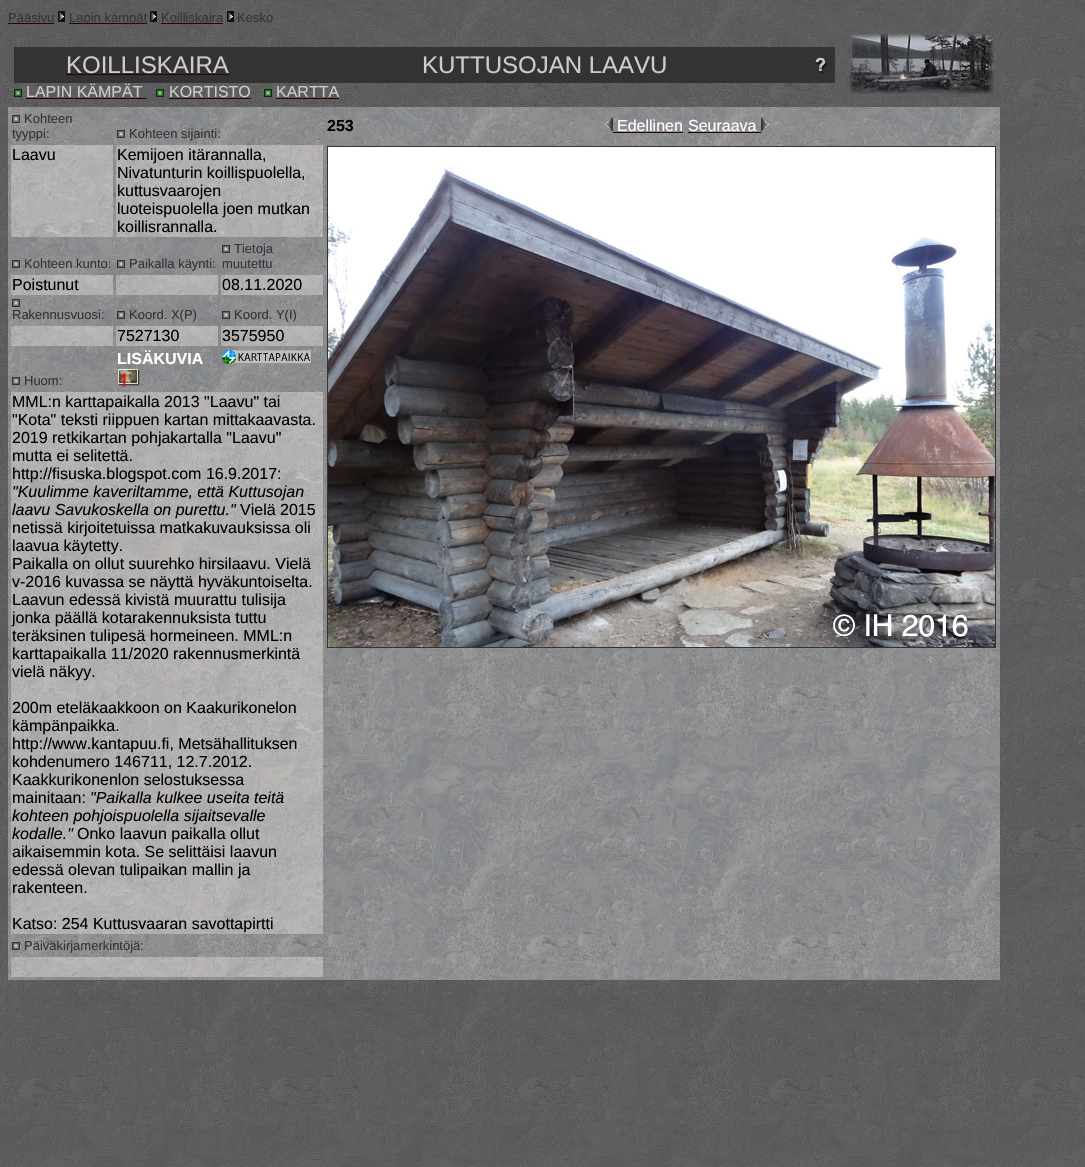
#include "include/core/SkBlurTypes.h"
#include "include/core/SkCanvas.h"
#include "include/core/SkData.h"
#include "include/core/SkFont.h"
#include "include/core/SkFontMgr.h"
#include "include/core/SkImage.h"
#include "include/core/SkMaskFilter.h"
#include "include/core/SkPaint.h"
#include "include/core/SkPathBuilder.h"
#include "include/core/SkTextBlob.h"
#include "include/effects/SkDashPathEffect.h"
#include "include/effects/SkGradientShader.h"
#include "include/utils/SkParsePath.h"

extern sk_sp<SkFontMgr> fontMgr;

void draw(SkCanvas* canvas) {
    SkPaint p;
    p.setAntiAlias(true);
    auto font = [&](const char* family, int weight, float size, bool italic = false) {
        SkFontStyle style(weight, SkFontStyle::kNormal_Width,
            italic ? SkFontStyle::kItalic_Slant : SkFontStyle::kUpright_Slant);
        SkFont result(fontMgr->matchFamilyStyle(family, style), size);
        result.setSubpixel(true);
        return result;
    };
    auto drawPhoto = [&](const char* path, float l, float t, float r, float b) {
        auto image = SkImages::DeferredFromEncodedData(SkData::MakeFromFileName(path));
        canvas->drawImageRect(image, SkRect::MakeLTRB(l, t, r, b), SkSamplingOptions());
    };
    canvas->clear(0xFFFFFFFF);
    drawPhoto("media/1.png", 0, 0, 1085, 1167);
    auto font1 = font("Liberation Sans", 400, 13);
    p.setColor(0xFF333333);
    canvas->drawString("Pääsivu", 8, 22, font1, p);
    p.setColor(0xFF330000);
    canvas->drawRect(SkRect::MakeLTRB(8, 23, 54, 24), p);
    drawPhoto("media/2.png", 58, 11, 65, 22);
    canvas->drawRect(SkRect::MakeLTRB(69, 23, 147, 24), p);
    p.setColor(0xFF333333);
    canvas->drawString("Lapin kämpät", 69, 22, font1, p);
    drawPhoto("media/2.png", 150, 11, 157, 22);
    canvas->drawString("Koilliskaira", 161, 22, font1, p);
    p.setColor(0xFF330000);
    canvas->drawRect(SkRect::MakeLTRB(161, 23, 223, 24), p);
    drawPhoto("media/2.png", 227, 11, 234, 22);
    p.setColor(0xFF333333);
    canvas->drawString("Kesko", 237, 22, font1, p);
    canvas->drawRect(SkRect::MakeLTRB(14, 47, 835, 83), p);
    auto font2 = font("Liberation Sans", 400, 24);
    p.setColor(0xFFCCCCCC);
    canvas->drawString("KOILLISKAIRA", 66, 73, font2, p);
    p.setColor(0xFF330000);
    canvas->drawRect(SkRect::MakeLTRB(66, 74, 229, 75), p);
    p.setColor(0xFFCCCCCC);
    canvas->drawString("KUTTUSOJAN LAAVU", 422, 73, font2, p);
    drawPhoto("media/3.png", 815, 56, 827, 74);
    drawPhoto("media/4.png", 14, 89, 22, 97);
    auto font3 = font("Liberation Sans", 400, 16);
    canvas->drawString("LAPIN KÄMPÄT", 26, 97, font3, p);
    p.setColor(0xFF330000);
    canvas->drawRect(SkRect::MakeLTRB(26, 98, 147, 99), p);
    drawPhoto("media/4.png", 156, 89, 164, 97);
    p.setColor(0xFFCCCCCC);
    canvas->drawString("KORTISTO", 169, 97, font3, p);
    p.setColor(0xFF330000);
    canvas->drawRect(SkRect::MakeLTRB(169, 98, 251, 99), p);
    drawPhoto("media/4.png", 264, 89, 272, 97);
    p.setColor(0xFFCCCCCC);
    canvas->drawString("KARTTA", 276, 97, font3, p);
    p.setColor(0xFF330000);
    canvas->drawRect(SkRect::MakeLTRB(276, 98, 339, 99), p);
    drawPhoto("media/5.png", 846, 32, 997, 97);
    drawPhoto("media/6.png", 8, 107, 1000, 980);
    drawPhoto("media/7.png", 12, 115, 20, 123);
    p.setColor(0xFF333333);
    canvas->drawString("Kohteen", 24, 123, font1, p);
    canvas->drawString("tyyppi:", 12, 138, font1, p);
    auto font4 = font("Liberation Sans", 700, 16);
    p.setColor(0xFF000000);
    canvas->drawString("253", 327, 131, font4, p);
    drawPhoto("media/8.png", 605, 117, 613, 132);
    p.setColor(0xFFFFFFFF);
    canvas->drawString("Edellinen", 617, 131, font3, p);
    p.setColor(0xFF330000);
    canvas->drawRect(SkRect::MakeLTRB(613, 132, 683, 133), p);
    p.setColor(0xFFFFFFFF);
    canvas->drawString("Seuraava", 688, 131, font3, p);
    p.setColor(0xFF330000);
    canvas->drawRect(SkRect::MakeLTRB(688, 132, 761, 133), p);
    drawPhoto("media/9.png", 761, 117, 769, 132);
    drawPhoto("media/7.png", 117, 130, 125, 138);
    p.setColor(0xFF333333);
    canvas->drawString("Kohteen sijainti:", 129, 138, font1, p);
    drawPhoto("media/10.png", 11, 145, 113, 237);
    p.setColor(0xFF000000);
    canvas->drawString("Laavu", 12, 160, font3, p);
    drawPhoto("media/11.png", 116, 145, 323, 237);
    {
        const struct { const char* s; float x, y; } items[] = {
            {"Kemijoen itärannalla,", 117, 160},
            {"Nivatunturin koillispuolella,", 117, 178},
            {"kuttusvaarojen", 117, 196},
            {"luoteispuolella joen mutkan", 117, 214},
            {"koillisrannalla.", 117, 232},
        };
        for (auto [s, x, y] : items) {
            canvas->drawString(s, x, y, font3, p);
        }
    }
    p.setStyle(SkPaint::kStroke_Style);
    p.setStrokeWidth(1);
    p.setColor(0xFF333333);
    canvas->drawRect(SkRect::MakeLTRB(327.5f, 146.5f, 995.5f, 647.5f), p);
    drawPhoto("media/12.png", 328, 147, 995, 647);
    drawPhoto("media/7.png", 12, 260, 20, 268);
    p.setStyle(SkPaint::kFill_Style);
    canvas->drawString("Kohteen kunto:", 24, 268, font1, p);
    drawPhoto("media/7.png", 117, 260, 125, 268);
    canvas->drawString("Paikalla käynti:", 129, 268, font1, p);
    drawPhoto("media/7.png", 222, 245, 230, 253);
    canvas->drawString("Tietoja", 234, 253, font1, p);
    canvas->drawString("muutettu", 222, 268, font1, p);
    drawPhoto("media/13.png", 11, 275, 113, 295);
    p.setColor(0xFF000000);
    canvas->drawString("Poistunut", 12, 290, font3, p);
    drawPhoto("media/13.png", 116, 275, 218, 295);
    drawPhoto("media/13.png", 221, 275, 323, 295);
    canvas->drawString("08.11.2020", 222, 290, font3, p);
    drawPhoto("media/7.png", 12, 299, 20, 307);
    p.setColor(0xFF333333);
    canvas->drawString("Rakennusvuosi:", 12, 319, font1, p);
    drawPhoto("media/7.png", 117, 311, 125, 319);
    canvas->drawString("Koord. X(P)", 129, 319, font1, p);
    drawPhoto("media/7.png", 222, 311, 230, 319);
    canvas->drawString("Koord. Y(I)", 234, 319, font1, p);
    drawPhoto("media/13.png", 11, 326, 113, 346);
    drawPhoto("media/13.png", 116, 326, 218, 346);
    p.setColor(0xFF000000);
    canvas->drawString("7527130", 117, 341, font3, p);
    drawPhoto("media/13.png", 221, 326, 323, 346);
    canvas->drawString("3575950", 222, 341, font3, p);
    p.setColor(0xFFFFFFFF);
    canvas->drawString("LISÄKUVIA", 117, 364, font4, p);
    drawPhoto("media/14.png", 117, 368, 140, 388);
    drawPhoto("media/15.png", 222, 350, 312, 364);
    drawPhoto("media/7.png", 12, 377, 20, 385);
    p.setColor(0xFF333333);
    canvas->drawString("Huom:", 24, 385, font1, p);
    drawPhoto("media/16.png", 11, 392, 323, 934);
    p.setColor(0xFF000000);
    {
        const struct { const char* s; float x, y; } items[] = {
            {"MML:n karttapaikalla 2013 \"Laavu\" tai", 12, 407},
            {"\"Kota\" teksti riippuen kartan mittakaavasta.", 12, 425},
            {"2019 retkikartan pohjakartalla \"Laavu\"", 12, 443},
            {"mutta ei selitettä.", 12, 461},
            {"http://fisuska.blogspot.com 16.9.2017:", 12, 479},
        };
        for (auto [s, x, y] : items) {
            canvas->drawString(s, x, y, font3, p);
        }
    }
    auto font5 = font("Liberation Sans", 400, 16, true);
    canvas->drawString("\"Kuulimme kaveriltamme, että Kuttusojan", 12, 497, font5, p);
    canvas->drawString("laavu Savukoskella on purettu.\"", 12, 515, font5, p);
    {
        const struct { const char* s; float x, y; } items[] = {
            {"Vielä 2015", 240, 515},
            {"netissä kirjoitetuissa matkakuvauksissa oli", 12, 533},
            {"laavua käytetty.", 12, 551},
            {"Paikalla on ollut suurehko hirsilaavu. Vielä", 12, 569},
            {"v-2016 kuvassa se näyttä hyväkuntoiselta.", 12, 587},
            {"Laavun edessä kivistä muurattu tulisija", 12, 605},
            {"jonka päällä kotarakennuksista tuttu", 12, 623},
            {"teräksinen tulipesä hormeineen. MML:n", 12, 641},
            {"karttapaikalla 11/2020 rakennusmerkintä", 12, 659},
            {"vielä näkyy.", 12, 677},
            {"200m eteläkaakkoon on Kaakurikonelon", 12, 713},
            {"kämpänpaikka.", 12, 731},
            {"http://www.kantapuu.fi, Metsähallituksen", 12, 749},
            {"kohdenumero 146711, 12.7.2012.", 12, 767},
            {"Kaakkurikonenlon selostuksessa", 12, 785},
            {"mainitaan:", 12, 803},
        };
        for (auto [s, x, y] : items) {
            canvas->drawString(s, x, y, font3, p);
        }
    }
    {
        const struct { const char* s; float x, y; } items[] = {
            {"\"Paikalla kulkee useita teitä", 90, 803},
            {"kohteen pohjoispuolella sijaitsevalle", 12, 821},
            {"kodalle.\"", 12, 839},
        };
        for (auto [s, x, y] : items) {
            canvas->drawString(s, x, y, font5, p);
        }
    }
    {
        const struct { const char* s; float x, y; } items[] = {
            {"Onko laavun paikalla ollut", 77, 839},
            {"aikaisemmin kota. Se selittäisi laavun", 12, 857},
            {"edessä olevan tulipaikan mallin ja", 12, 875},
            {"rakenteen.", 12, 893},
            {"Katso: 254 Kuttusvaaran savottapirtti", 12, 929},
        };
        for (auto [s, x, y] : items) {
            canvas->drawString(s, x, y, font3, p);
        }
    }
    drawPhoto("media/7.png", 12, 942, 20, 950);
    p.setColor(0xFF333333);
    canvas->drawString("Päiväkirjamerkintöjä:", 24, 950, font1, p);
    drawPhoto("media/17.png", 11, 957, 323, 977);
}
